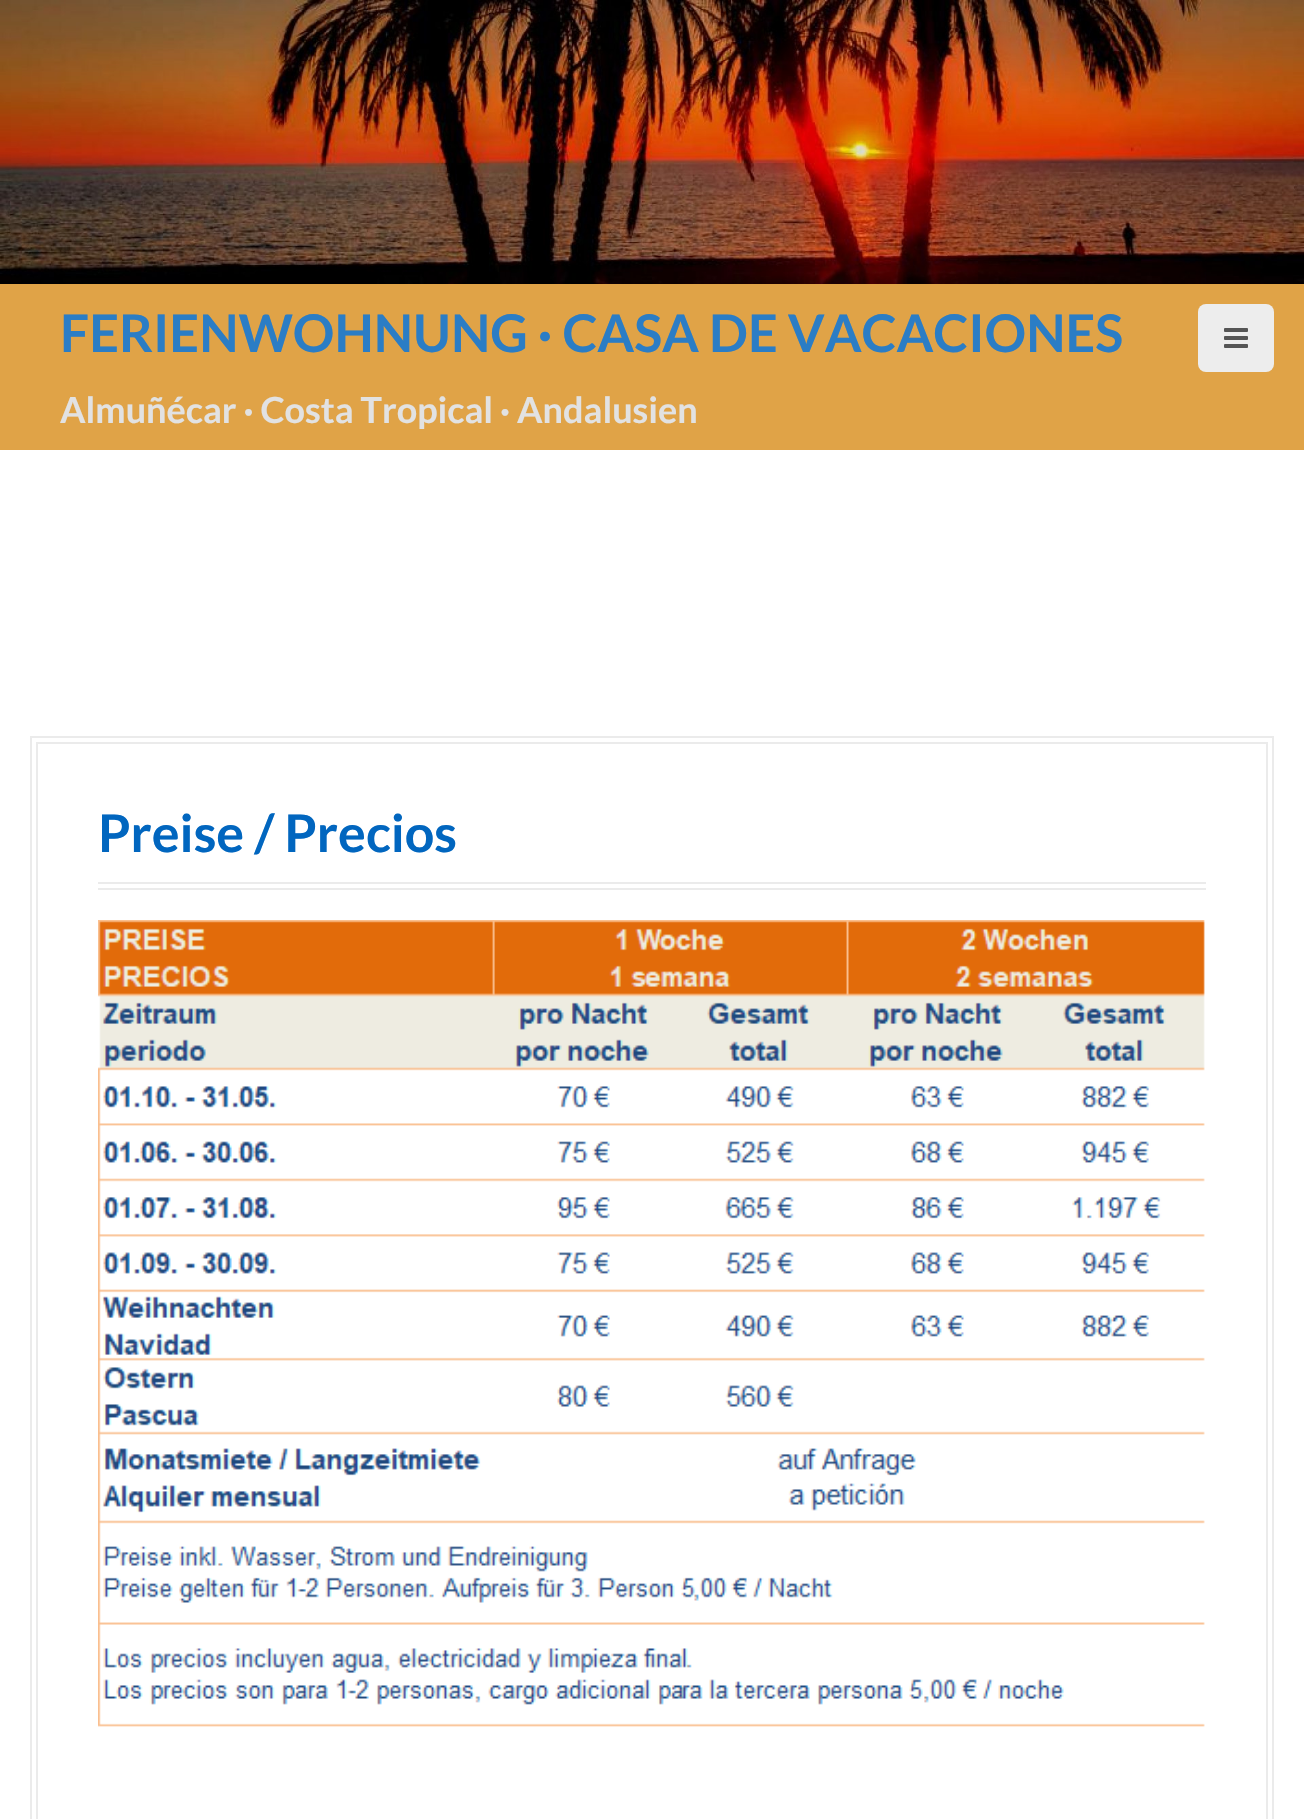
#include "include/core/SkBlurTypes.h"
#include "include/core/SkCanvas.h"
#include "include/core/SkData.h"
#include "include/core/SkFont.h"
#include "include/core/SkFontMgr.h"
#include "include/core/SkImage.h"
#include "include/core/SkMaskFilter.h"
#include "include/core/SkPaint.h"
#include "include/core/SkPathBuilder.h"
#include "include/core/SkTextBlob.h"
#include "include/effects/SkDashPathEffect.h"
#include "include/effects/SkGradientShader.h"
#include "include/utils/SkParsePath.h"

extern sk_sp<SkFontMgr> fontMgr;

void draw(SkCanvas* canvas) {
    SkPaint p;
    p.setAntiAlias(true);
    auto font = [&](const char* family, int weight, float size, bool italic = false) {
        SkFontStyle style(weight, SkFontStyle::kNormal_Width,
            italic ? SkFontStyle::kItalic_Slant : SkFontStyle::kUpright_Slant);
        SkFont result(fontMgr->matchFamilyStyle(family, style), size);
        result.setSubpixel(true);
        return result;
    };
    auto drawPhoto = [&](const char* path, float l, float t, float r, float b) {
        auto image = SkImages::DeferredFromEncodedData(SkData::MakeFromFileName(path));
        canvas->drawImageRect(image, SkRect::MakeLTRB(l, t, r, b), SkSamplingOptions());
    };
    canvas->clear(0xFFFFFFFF);
    drawPhoto("media/1.png", 0, 0, 1304, 284);
    p.setColor(0xFFE0A347);
    canvas->drawRect(SkRect::MakeLTRB(0, 284, 1304, 450), p);
    auto font1 = font("Lato", 700, 52);
    p.setColor(0xFF2B7DC5);
    canvas->drawString("FERIENWOHNUNG · CASA DE VACACIONES", 60, 352, font1, p);
    auto font2 = font("Lato", 700, 36);
    p.setColor(0xFFE2E2E2);
    canvas->drawString("Almuñécar · Costa Tropical · Andalusien", 60, 423, font2, p);
    p.setColor(0xFFEDEDED);
    canvas->drawRoundRect(SkRect::MakeLTRB(1198, 304, 1274, 372), 8, 8, p);
    drawPhoto("media/2.png", 1224, 328, 1248, 348);
    p.setStyle(SkPaint::kStroke_Style);
    p.setStrokeWidth(2);
    p.setColor(0xFFEBEBEB);
    canvas->drawRect(SkRect::MakeLTRB(31, 737, 1273, 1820), p);
    canvas->drawRect(SkRect::MakeLTRB(37, 743, 1267, 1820), p);
    p.setStyle(SkPaint::kFill_Style);
    canvas->drawRect(SkRect::MakeLTRB(98, 882, 1206, 884), p);
    canvas->drawRect(SkRect::MakeLTRB(98, 888, 1206, 890), p);
    p.setColor(0xFF0166BF);
    canvas->drawString("Preise / Precios", 98, 852, font1, p);
    drawPhoto("media/3.png", 98, 920, 1205, 1727);
}
